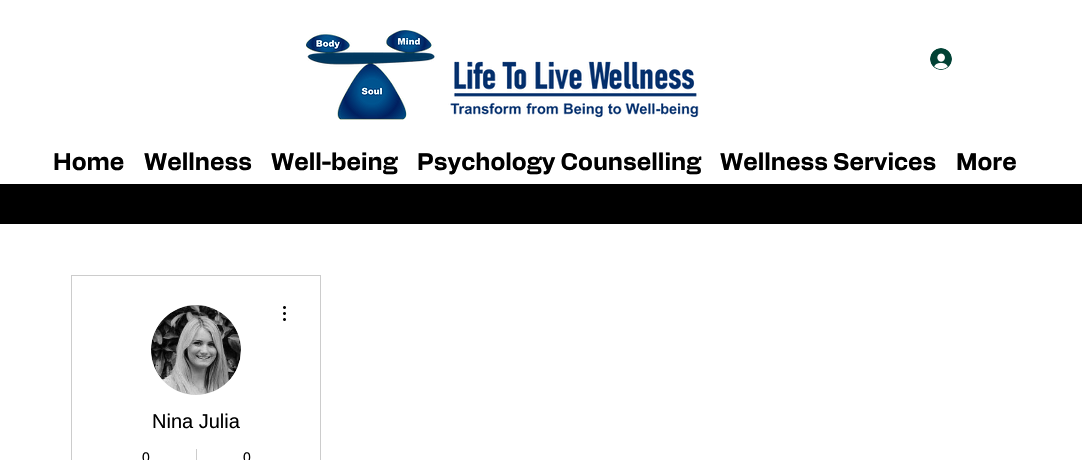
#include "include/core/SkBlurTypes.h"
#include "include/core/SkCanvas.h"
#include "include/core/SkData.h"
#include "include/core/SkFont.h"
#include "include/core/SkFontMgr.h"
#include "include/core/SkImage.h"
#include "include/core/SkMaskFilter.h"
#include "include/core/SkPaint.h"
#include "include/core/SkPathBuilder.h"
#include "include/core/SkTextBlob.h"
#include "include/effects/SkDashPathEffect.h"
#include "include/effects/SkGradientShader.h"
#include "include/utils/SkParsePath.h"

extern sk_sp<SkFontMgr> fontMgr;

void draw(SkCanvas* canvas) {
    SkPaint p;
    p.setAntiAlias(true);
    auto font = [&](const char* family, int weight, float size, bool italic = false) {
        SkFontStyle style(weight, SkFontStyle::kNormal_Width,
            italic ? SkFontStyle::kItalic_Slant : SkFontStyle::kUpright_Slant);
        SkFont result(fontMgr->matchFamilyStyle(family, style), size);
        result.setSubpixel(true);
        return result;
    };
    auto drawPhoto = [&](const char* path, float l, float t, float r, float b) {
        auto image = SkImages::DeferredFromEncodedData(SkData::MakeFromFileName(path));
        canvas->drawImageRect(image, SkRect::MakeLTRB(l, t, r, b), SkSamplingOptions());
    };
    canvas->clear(0xFFFFFFFF);
    drawPhoto("media/1.png", 306, 30, 699, 120);
    drawPhoto("media/2.png", 930, 48, 952, 70);
    auto font1 = font("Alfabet", 700, 24);
    p.setColor(0xFF000000);
    {
        const struct { const char* s; float x, y; } items[] = {
            {"Home", 53, 170},
            {"Wellness", 144, 170},
            {"Well-being", 271, 170},
            {"Psychology Counselling", 417, 170},
            {"Wellness Services", 720, 170},
            {"More", 956, 170},
        };
        for (auto [s, x, y] : items) {
            canvas->drawString(s, x, y, font1, p);
        }
    }
    canvas->drawRect(SkRect::MakeLTRB(0, 184, 1082, 224), p);
    p.setStyle(SkPaint::kStroke_Style);
    p.setStrokeWidth(1);
    p.setColor(0xFFCCCCCC);
    canvas->drawRect(SkRect::MakeLTRB(71.5f, 275.5f, 320.5f, 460.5f), p);
    p.setStyle(SkPaint::kFill_Style);
    p.setColor(0xFFD8D8D8);
    canvas->drawCircle(196, 350, 45, p);
    drawPhoto("media/3.png", 151, 305, 241, 395);
    drawPhoto("media/4.png", 283, 306, 286, 321);
    auto font2 = font("Liberation Sans", 400, 20);
    p.setColor(0xFF000000);
    canvas->drawString("Nina Julia", 152, 428, font2, p);
    auto font3 = font("Liberation Sans", 400, 14);
    canvas->drawString("0", 142, 462, font3, p);
    p.setColor(0xFFCCCCCC);
    canvas->drawRect(SkRect::MakeLTRB(196, 449, 197, 460), p);
    p.setColor(0xFF000000);
    canvas->drawString("0", 243, 462, font3, p);
}
